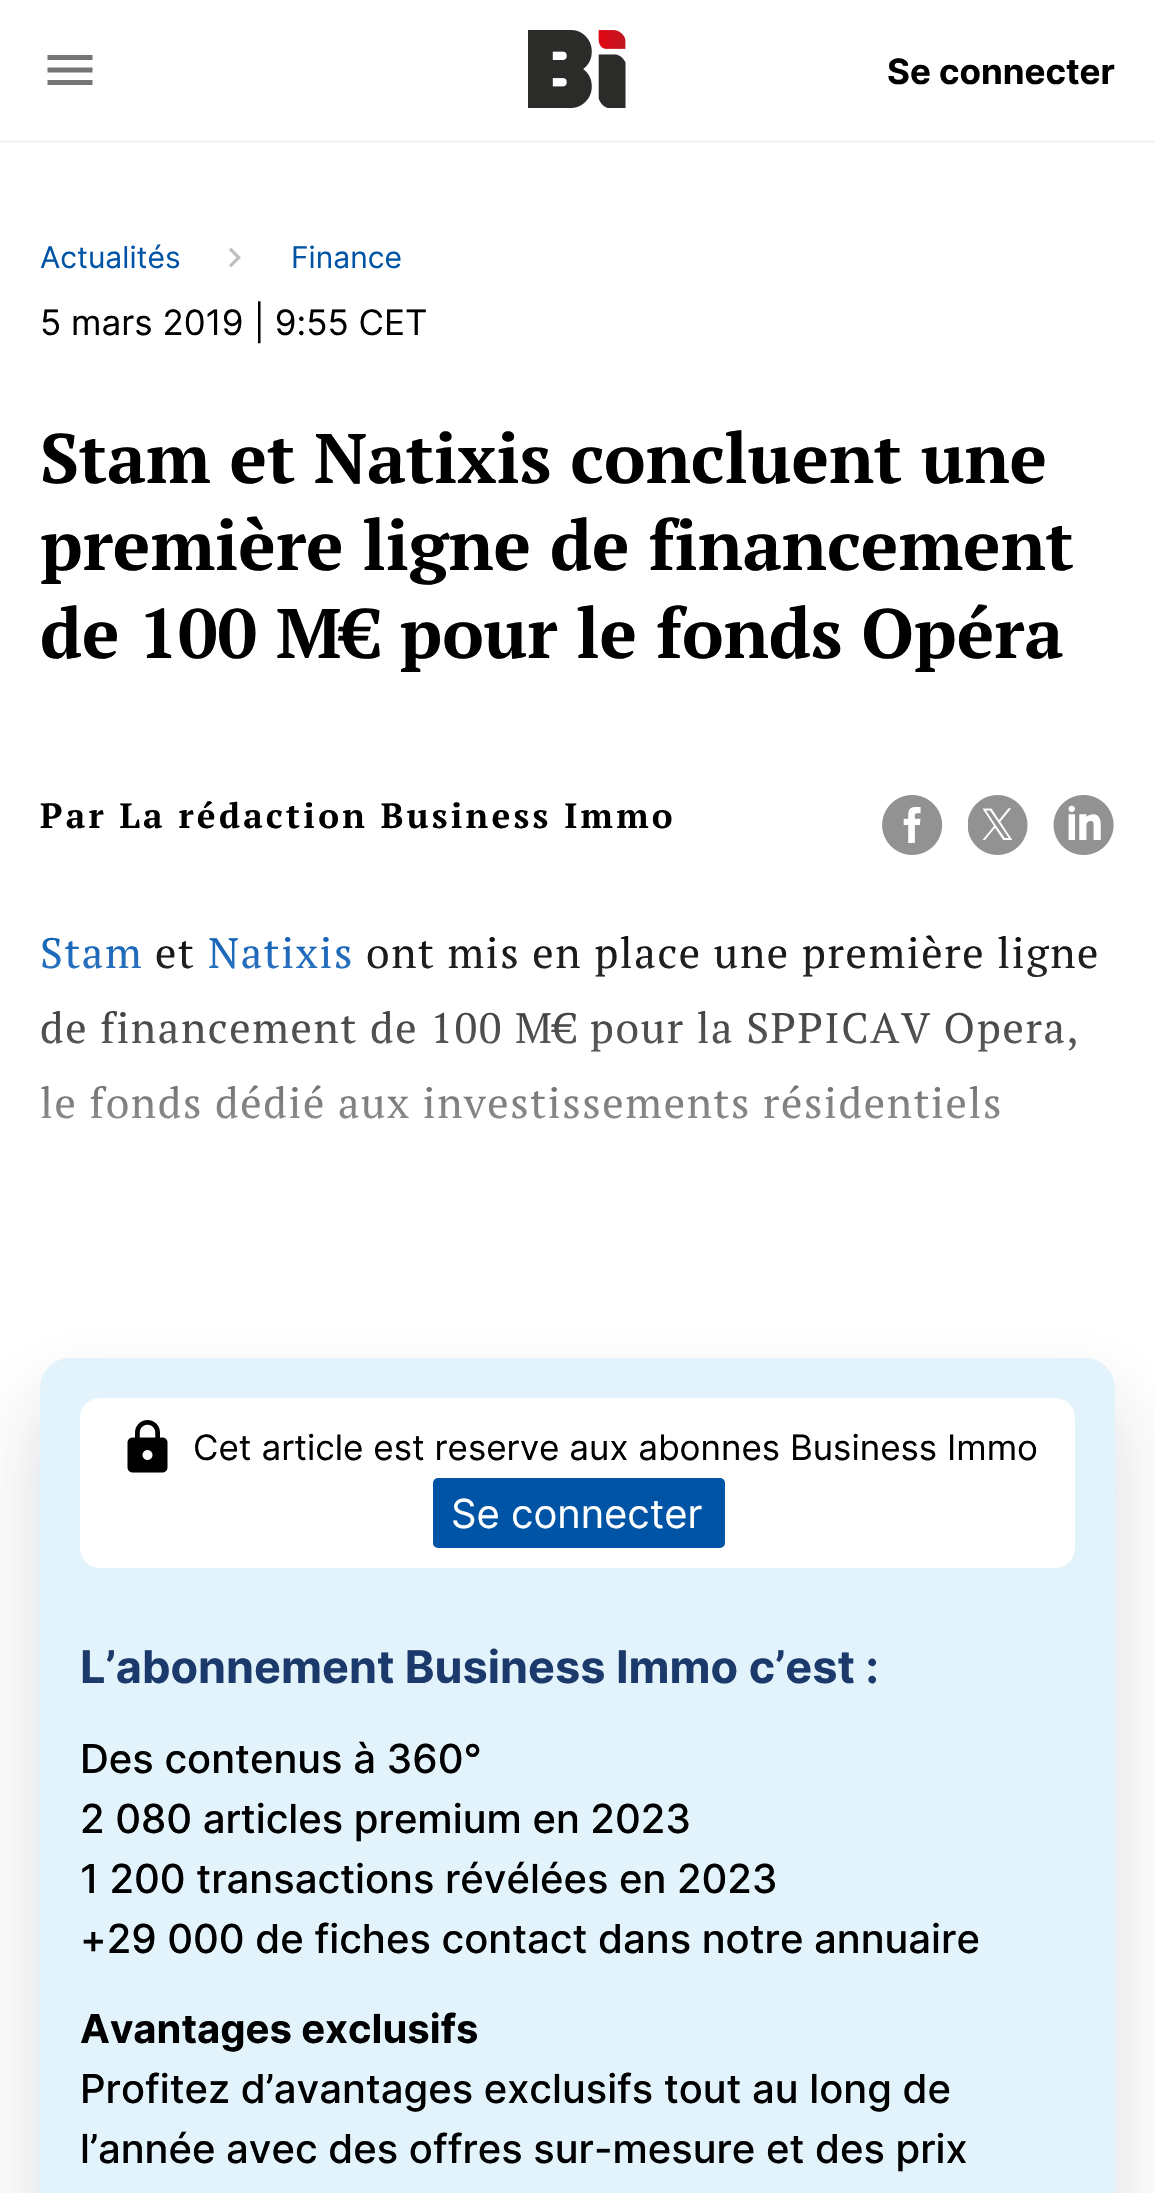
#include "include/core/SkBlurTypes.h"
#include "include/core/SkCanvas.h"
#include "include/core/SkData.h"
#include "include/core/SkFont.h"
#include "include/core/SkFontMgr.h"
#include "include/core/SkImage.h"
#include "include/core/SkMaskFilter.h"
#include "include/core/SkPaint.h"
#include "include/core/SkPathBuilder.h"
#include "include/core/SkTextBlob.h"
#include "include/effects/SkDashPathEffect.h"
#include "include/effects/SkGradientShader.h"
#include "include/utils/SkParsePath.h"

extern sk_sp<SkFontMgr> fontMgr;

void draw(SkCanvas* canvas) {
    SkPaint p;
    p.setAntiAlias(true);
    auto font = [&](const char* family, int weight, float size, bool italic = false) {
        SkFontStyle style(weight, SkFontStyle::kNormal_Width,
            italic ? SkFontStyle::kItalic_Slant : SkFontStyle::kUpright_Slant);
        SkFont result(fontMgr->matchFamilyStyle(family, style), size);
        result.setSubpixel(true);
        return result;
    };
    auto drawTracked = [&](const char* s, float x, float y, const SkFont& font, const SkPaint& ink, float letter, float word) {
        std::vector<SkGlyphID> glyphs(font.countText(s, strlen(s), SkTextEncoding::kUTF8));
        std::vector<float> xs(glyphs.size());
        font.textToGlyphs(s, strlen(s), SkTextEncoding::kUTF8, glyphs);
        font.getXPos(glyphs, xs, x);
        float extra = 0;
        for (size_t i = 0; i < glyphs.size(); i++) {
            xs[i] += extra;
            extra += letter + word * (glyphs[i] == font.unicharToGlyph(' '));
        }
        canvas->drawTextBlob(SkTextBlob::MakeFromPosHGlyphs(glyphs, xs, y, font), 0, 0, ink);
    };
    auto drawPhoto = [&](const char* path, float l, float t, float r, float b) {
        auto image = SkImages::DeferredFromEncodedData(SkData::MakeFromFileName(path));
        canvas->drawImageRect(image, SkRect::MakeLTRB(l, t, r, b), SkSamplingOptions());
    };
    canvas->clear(0xFFF5F5F5);
    p.setColor(0xFFFFFFFF);
    canvas->drawRect(SkRect::MakeLTRB(0, 0, 1155, 140), p);
    drawPhoto("media/1.png", 47, 55, 93, 85);
    drawPhoto("media/2.png", 528, 30, 626, 108);
    auto font1 = font("Inter", 700, 35);
    p.setColor(0xFF000000);
    canvas->drawString("Se connecter", 887, 84, font1, p);
    p.setColor(0xFFFFFFFF);
    canvas->drawRect(SkRect::MakeLTRB(0, 143, 1155, 2193), p);
    auto font2 = font("Inter", 400, 30);
    p.setColor(0xFF0054A6);
    canvas->drawString("Actualités", 40, 268, font2, p);
    p.setColor(0xFFBFBFBF);
    canvas->drawPath(SkPathBuilder(SkPathFillType::kEvenOdd).moveTo(231, 247.5f).lineTo(229, 250).lineTo(236.5f, 257.5f).lineTo(229, 265).lineTo(231, 267.5f).lineTo(241, 257.5f).close().detach(), p);
    p.setColor(0xFF0054A6);
    canvas->drawString("Finance", 291, 268, font2, p);
    auto font3 = font("Inter", 400, 35);
    p.setColor(0xFF000000);
    canvas->drawString("5 mars 2019 | 9:55 CET", 40, 335, font3, p);
    auto font4 = font("PT Serif", 700, 70);
    {
        const struct { const char* s; float x, y; } items[] = {
            {"Stam et Natixis concluent une", 40, 483},
            {"première ligne de financement", 40, 570},
            {"de 100 M€ pour le fonds Opéra", 40, 658},
        };
        for (auto [s, x, y] : items) {
            canvas->drawString(s, x, y, font4, p);
        }
    }
    auto font5 = font("PT Serif", 700, 35);
    drawTracked("Par La rédaction Business Immo", 40, 828, font5, p, 3.25f, 0);
    drawPhoto("media/3.png", 882, 795, 943, 855);
    drawPhoto("media/4.png", 968, 795, 1028, 855);
    drawPhoto("media/5.png", 1053, 795, 1114, 855);
    auto font6 = font("PT Serif", 400, 42.5f);
    p.setColor(0xFF0559B3);
    drawTracked("Stam", 40, 968, font6, p, 1.65f, 0);
    p.setColor(0xFF000000);
    drawTracked("et", 155, 968, font6, p, 1.65f, 0);
    p.setColor(0xFF0559B3);
    drawTracked("Natixis", 208, 968, font6, p, 1.65f, 0);
    p.setColor(0xFF000000);
    {
        const struct { const char* s; float x, y; } items[] = {
            {"ont mis en place une première ligne", 366, 968},
            {"de financement de 100 M€ pour la SPPICAV Opera,", 40, 1043},
            {"le fonds dédié aux investissements résidentiels", 40, 1118},
        };
        for (auto [s, x, y] : items) {
            drawTracked(s, x, y, font6, p, 1.65f, 0);
        }
    }
    {
        const SkColor colors[] = {0x00FFFFFF, 0xFFFFFFFF};
        const float stops[] = {0, 1};
        const SkPoint ends[] = {{578, 915}, {578, 1290}};
        p.setShader(SkGradientShader::MakeLinear(ends, colors, stops, 2, SkTileMode::kClamp));
        p.setAlpha(255);
    }
    canvas->drawRect(SkRect::MakeLTRB(41, 935, 1097, 1119), p);
    p.setShader(nullptr);
    p.setColor(0x29162233);
    p.setMaskFilter(SkMaskFilter::MakeBlur(kNormal_SkBlurStyle, 40));
    canvas->drawRoundRect(SkRect::MakeLTRB(40, 1398, 1115, 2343), 30, 30, p);
    p.setMaskFilter(nullptr);
    p.setColor(0xFFE3F3FC);
    canvas->drawRoundRect(SkRect::MakeLTRB(40, 1358, 1115, 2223), 30, 30, p);
    p.setColor(0xFFFFFFFF);
    canvas->drawRoundRect(SkRect::MakeLTRB(80, 1398, 1075, 1568), 20, 20, p);
    drawPhoto("media/6.png", 127, 1420, 168, 1473);
    p.setColor(0xFF000000);
    canvas->drawString("Cet article est reserve aux abonnes Business Immo", 193, 1460, font3, p);
    p.setColor(0xFF0054A6);
    canvas->drawRoundRect(SkRect::MakeLTRB(433, 1478, 725, 1548), 5, 5, p);
    auto font7 = font("Inter", 400, 40);
    p.setColor(0xFFFFFFFF);
    canvas->drawString("Se connecter", 451, 1528, font7, p);
    auto font8 = font("Inter", 700, 45);
    p.setColor(0xFF1B3A6B);
    canvas->drawString("L’abonnement Business Immo c’est :", 80, 1683, font8, p);
    auto font9 = font("Inter", 500, 40);
    p.setColor(0xFF000000);
    {
        const struct { const char* s; float x, y; } items[] = {
            {"Des contenus à 360°", 80, 1773},
            {"2 080 articles premium en 2023", 80, 1833},
            {"1 200 transactions révélées en 2023", 80, 1893},
            {"+29 000 de fiches contact dans notre annuaire", 80, 1953},
        };
        for (auto [s, x, y] : items) {
            canvas->drawString(s, x, y, font9, p);
        }
    }
    auto font10 = font("Inter", 700, 40);
    canvas->drawString("Avantages exclusifs", 80, 2043, font10, p);
    canvas->drawString("Profitez d’avantages exclusifs tout au long de", 80, 2103, font9, p);
    canvas->drawString("l’année avec des offres sur-mesure et des prix", 80, 2163, font9, p);
}
